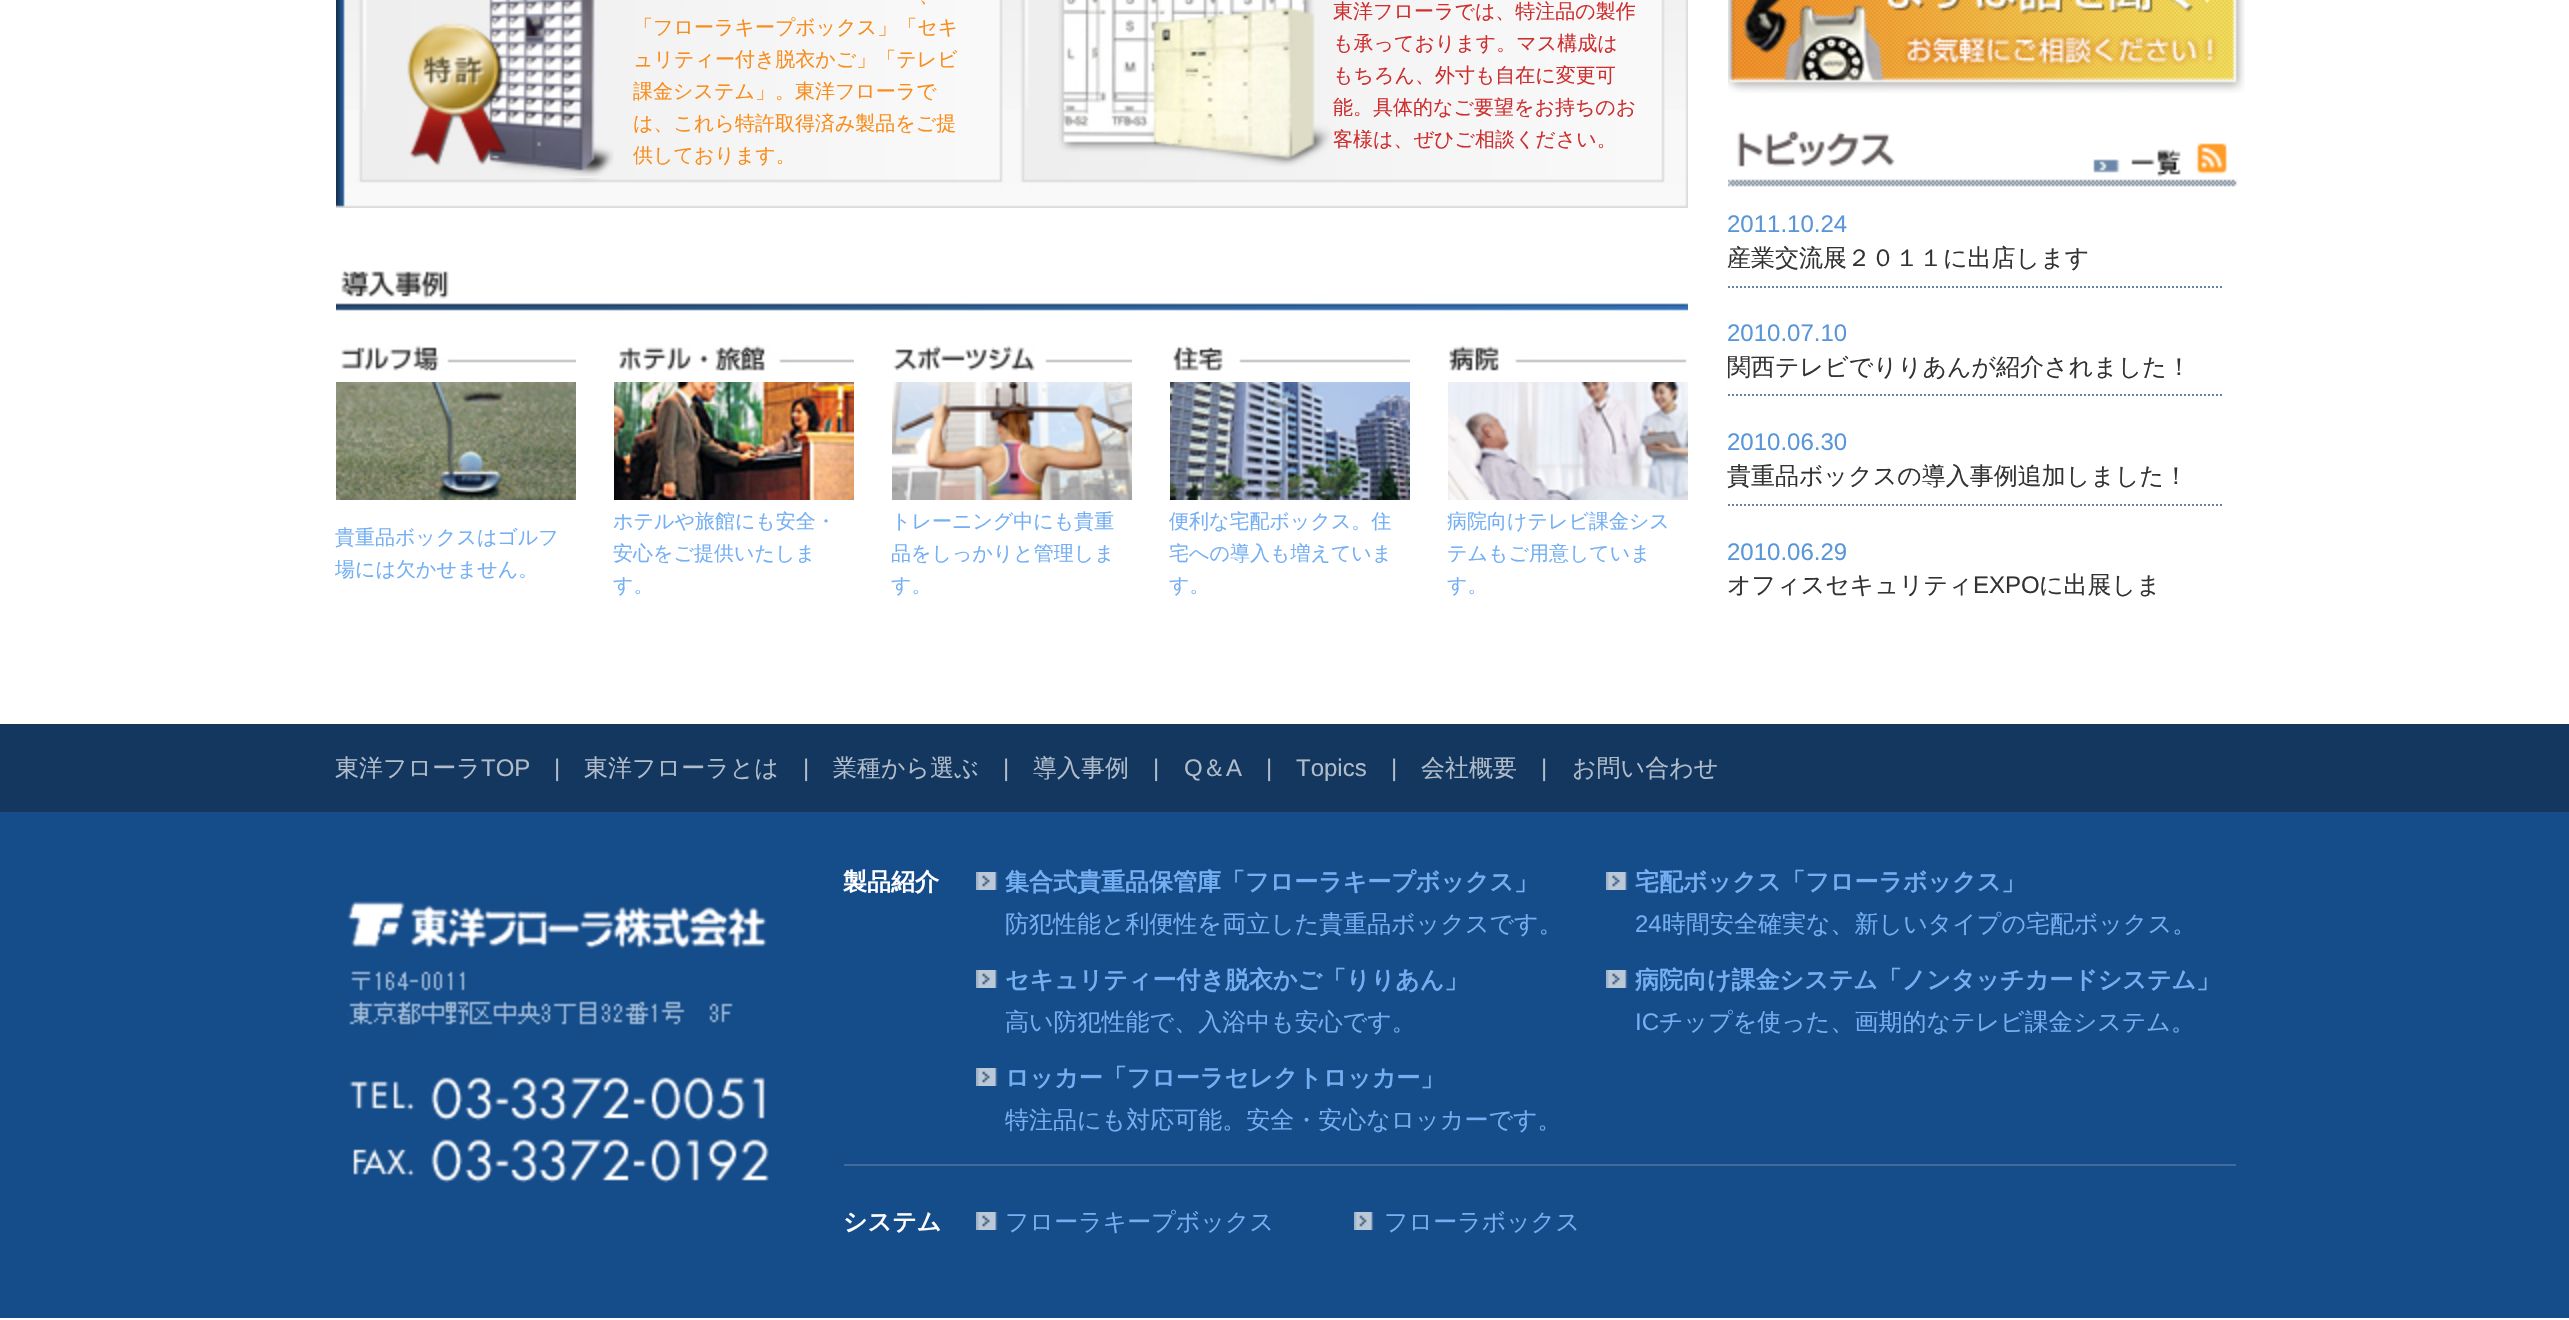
#include "include/core/SkBlurTypes.h"
#include "include/core/SkCanvas.h"
#include "include/core/SkData.h"
#include "include/core/SkFont.h"
#include "include/core/SkFontMgr.h"
#include "include/core/SkImage.h"
#include "include/core/SkMaskFilter.h"
#include "include/core/SkPaint.h"
#include "include/core/SkPathBuilder.h"
#include "include/core/SkTextBlob.h"
#include "include/effects/SkDashPathEffect.h"
#include "include/effects/SkGradientShader.h"
#include "include/utils/SkParsePath.h"

extern sk_sp<SkFontMgr> fontMgr;

void draw(SkCanvas* canvas) {
    SkPaint p;
    p.setAntiAlias(true);
    auto font = [&](const char* family, int weight, float size, bool italic = false) {
        SkFontStyle style(weight, SkFontStyle::kNormal_Width,
            italic ? SkFontStyle::kItalic_Slant : SkFontStyle::kUpright_Slant);
        SkFont result(fontMgr->matchFamilyStyle(family, style), size);
        result.setSubpixel(true);
        return result;
    };
    auto drawPhoto = [&](const char* path, float l, float t, float r, float b) {
        auto image = SkImages::DeferredFromEncodedData(SkData::MakeFromFileName(path));
        canvas->drawImageRect(image, SkRect::MakeLTRB(l, t, r, b), SkSamplingOptions());
    };
    canvas->clear(0xFFFFFFFF);
    drawPhoto("media/1.png", 336, 0, 1688, 178);
    drawPhoto("media/2.png", 344, 0, 1686, 110);
    drawPhoto("media/3.png", 407, 0, 614, 176);
    auto font1 = font("WenQuanYi Zen Hei", 500, 20);
    p.setColor(0xFFF98C1B);
    {
        const struct { const char* s; float x, y; } items[] = {
            {"、", 919, 2},
            {"「フローラキープボックス」「セキ", 633, 34},
            {"ュリティー付き脱衣かご」「テレビ", 633, 66},
            {"課金システム」。東洋フローラで", 633, 98},
            {"は、これら特許取得済み製品をご提", 633, 130},
            {"供しております。", 633, 162},
        };
        for (auto [s, x, y] : items) {
            canvas->drawString(s, x, y, font1, p);
        }
    }
    drawPhoto("media/4.png", 1058, 0, 1332, 167);
    p.setColor(0xFFCE2E2E);
    {
        const struct { const char* s; float x, y; } items[] = {
            {"東洋フローラでは、特注品の製作", 1333, 18},
            {"も承っております。マス構成は", 1333, 50},
            {"もちろん、外寸も自在に変更可", 1333, 82},
            {"能。具体的なご要望をお持ちのお", 1333, 114},
            {"客様は、ぜひご相談ください。", 1333, 146},
        };
        for (auto [s, x, y] : items) {
            canvas->drawString(s, x, y, font1, p);
        }
    }
    drawPhoto("media/5.png", 336, 178, 1688, 208);
    drawPhoto("media/6.png", 336, 271, 1688, 311);
    drawPhoto("media/7.png", 341, 345, 576, 371);
    drawPhoto("media/8.png", 618, 345, 854, 371);
    drawPhoto("media/9.png", 893, 345, 1132, 371);
    drawPhoto("media/10.png", 1173, 345, 1410, 371);
    drawPhoto("media/11.png", 1449, 345, 1687, 371);
    drawPhoto("media/12.png", 336, 382, 576, 500);
    drawPhoto("media/13.png", 614, 382, 854, 500);
    drawPhoto("media/14.png", 892, 382, 1132, 500);
    drawPhoto("media/15.png", 1170, 382, 1410, 500);
    drawPhoto("media/16.png", 1448, 382, 1688, 500);
    p.setColor(0xFF74AFF3);
    {
        const struct { const char* s; float x, y; } items[] = {
            {"貴重品ボックスはゴルフ", 335, 544},
            {"場には欠かせません。", 335, 576},
            {"ホテルや旅館にも安全・", 613, 528},
            {"安心をご提供いたしま", 613, 560},
            {"す。", 613, 592},
            {"トレーニング中にも貴重", 891, 528},
            {"品をしっかりと管理しま", 891, 560},
            {"す。", 891, 592},
            {"便利な宅配ボックス。住", 1169, 528},
            {"宅への導入も増えていま", 1169, 560},
            {"す。", 1169, 592},
            {"病院向けテレビ課金シス", 1447, 528},
            {"テムもご用意していま", 1447, 560},
            {"す。", 1447, 592},
        };
        for (auto [s, x, y] : items) {
            canvas->drawString(s, x, y, font1, p);
        }
    }
    drawPhoto("media/17.png", 1728, 0, 2245, 93);
    drawPhoto("media/18.png", 1728, 131, 2238, 187);
    p.setStyle(SkPaint::kStroke_Style);
    p.setStrokeWidth(2);
    p.setColor(0xFF6483A7);
    p.setPathEffect(SkDashPathEffect::Make({{2, 2}}, 0));
    canvas->drawPath(SkPathBuilder().moveTo(1728, 287).lineTo(2222, 287).detach(), p);
    p.setPathEffect(nullptr);
    auto font2 = font("Liberation Sans", 400, 24);
    p.setStyle(SkPaint::kFill_Style);
    p.setColor(0xFF5995D9);
    canvas->drawString("2011.10.24", 1727, 232, font2, p);
    auto font3 = font("WenQuanYi Zen Hei", 500, 24);
    p.setColor(0xFF333333);
    canvas->drawString("産業交流展２０１１に出店します", 1727, 266, font3, p);
    p.setStyle(SkPaint::kStroke_Style);
    p.setColor(0xFF6483A7);
    p.setPathEffect(SkDashPathEffect::Make({{2, 2}}, 0));
    canvas->drawPath(SkPathBuilder().moveTo(1728, 395).lineTo(2222, 395).detach(), p);
    p.setPathEffect(nullptr);
    p.setStyle(SkPaint::kFill_Style);
    p.setColor(0xFF5995D9);
    canvas->drawString("2010.07.10", 1727, 341, font2, p);
    p.setColor(0xFF333333);
    canvas->drawString("関西テレビでりりあんが紹介されました！", 1727, 375, font3, p);
    p.setStyle(SkPaint::kStroke_Style);
    p.setColor(0xFF6483A7);
    p.setPathEffect(SkDashPathEffect::Make({{2, 2}}, 0));
    canvas->drawPath(SkPathBuilder().moveTo(1728, 505).lineTo(2222, 505).detach(), p);
    p.setPathEffect(nullptr);
    p.setStyle(SkPaint::kFill_Style);
    p.setColor(0xFF5995D9);
    canvas->drawString("2010.06.30", 1727, 450, font2, p);
    p.setColor(0xFF333333);
    canvas->drawString("貴重品ボックスの導入事例追加しました！", 1727, 484, font3, p);
    p.setColor(0xFF5995D9);
    canvas->drawString("2010.06.29", 1727, 560, font2, p);
    p.setColor(0xFF333333);
    canvas->drawString("オフィスセキュリティ", 1727, 593, font3, p);
    canvas->drawString("EXPO", 1973, 593, font2, p);
    canvas->drawString("に出展しま", 2039, 593, font3, p);
    p.setColor(0xFF13375F);
    canvas->drawRect(SkRect::MakeLTRB(0, 724, 2569, 812), p);
    p.setColor(0xFFB0BCCA);
    canvas->drawString("東洋フローラ", 335, 776, font3, p);
    canvas->drawString("TOP", 481, 776, font2, p);
    canvas->drawString("|", 554, 776, font2, p);
    canvas->drawString("東洋フローラとは", 584, 776, font3, p);
    canvas->drawString("|", 803, 776, font2, p);
    canvas->drawString("業種から選ぶ", 833, 776, font3, p);
    canvas->drawString("|", 1003, 776, font2, p);
    canvas->drawString("導入事例", 1033, 776, font3, p);
    canvas->drawString("|", 1153, 776, font2, p);
    canvas->drawString("Q", 1184, 776, font2, p);
    canvas->drawString("＆", 1202, 776, font3, p);
    {
        const struct { const char* s; float x, y; } items[] = {
            {"A", 1226, 776},
            {"|", 1266, 776},
            {"Topics", 1296, 776},
            {"|", 1391, 776},
        };
        for (auto [s, x, y] : items) {
            canvas->drawString(s, x, y, font2, p);
        }
    }
    canvas->drawString("会社概要", 1421, 776, font3, p);
    canvas->drawString("|", 1541, 776, font2, p);
    canvas->drawString("お問い合わせ", 1572, 776, font3, p);
    p.setColor(0xFF154C8A);
    canvas->drawRect(SkRect::MakeLTRB(0, 812, 2569, 1318), p);
    p.setColor(0xFF426B99);
    canvas->drawRect(SkRect::MakeLTRB(844, 1164, 2236, 1166), p);
    auto font4 = font("WenQuanYi Zen Hei", 700, 24);
    p.setColor(0xFFFFFFFF);
    canvas->drawString("製品紹介", 843, 890, font4, p);
    drawPhoto("media/19.png", 976, 872, 998, 890);
    p.setColor(0xFF74AFF3);
    canvas->drawString("集合式貴重品保管庫「フローラキープボックス」", 1005, 890, font4, p);
    canvas->drawString("防犯性能と利便性を両立した貴重品ボックスです。", 1005, 932, font3, p);
    drawPhoto("media/19.png", 976, 970, 998, 988);
    canvas->drawString("セキュリティー付き脱衣かご「りりあん」", 1005, 988, font4, p);
    canvas->drawString("高い防犯性能で、入浴中も安心です。", 1005, 1030, font3, p);
    drawPhoto("media/19.png", 976, 1068, 998, 1086);
    canvas->drawString("ロッカー「フローラセレクトロッカー」", 1005, 1086, font4, p);
    canvas->drawString("特注品にも対応可能。安全・安心なロッカーです。", 1005, 1128, font3, p);
    drawPhoto("media/19.png", 1606, 872, 1628, 890);
    canvas->drawString("宅配ボックス「フローラボックス」", 1635, 890, font4, p);
    canvas->drawString("24", 1635, 932, font2, p);
    canvas->drawString("時間安全確実な、新しいタイプの宅配ボックス。", 1662, 932, font3, p);
    drawPhoto("media/19.png", 1606, 970, 1628, 988);
    canvas->drawString("病院向け課金システム「ノンタッチカードシステム」", 1635, 988, font4, p);
    canvas->drawString("IC", 1635, 1030, font2, p);
    canvas->drawString("チップを使った、画期的なテレビ課金システム。", 1659, 1030, font3, p);
    drawPhoto("media/20.png", 347, 901, 769, 1183);
    p.setColor(0xFFFFFFFF);
    canvas->drawString("システム", 843, 1230, font4, p);
    drawPhoto("media/19.png", 976, 1212, 998, 1230);
    p.setColor(0xFF74AFF3);
    canvas->drawString("フローラキープボックス", 1005, 1230, font3, p);
    drawPhoto("media/21.png", 1354, 1212, 1374, 1230);
    canvas->drawString("フローラボックス", 1384, 1230, font3, p);
}
